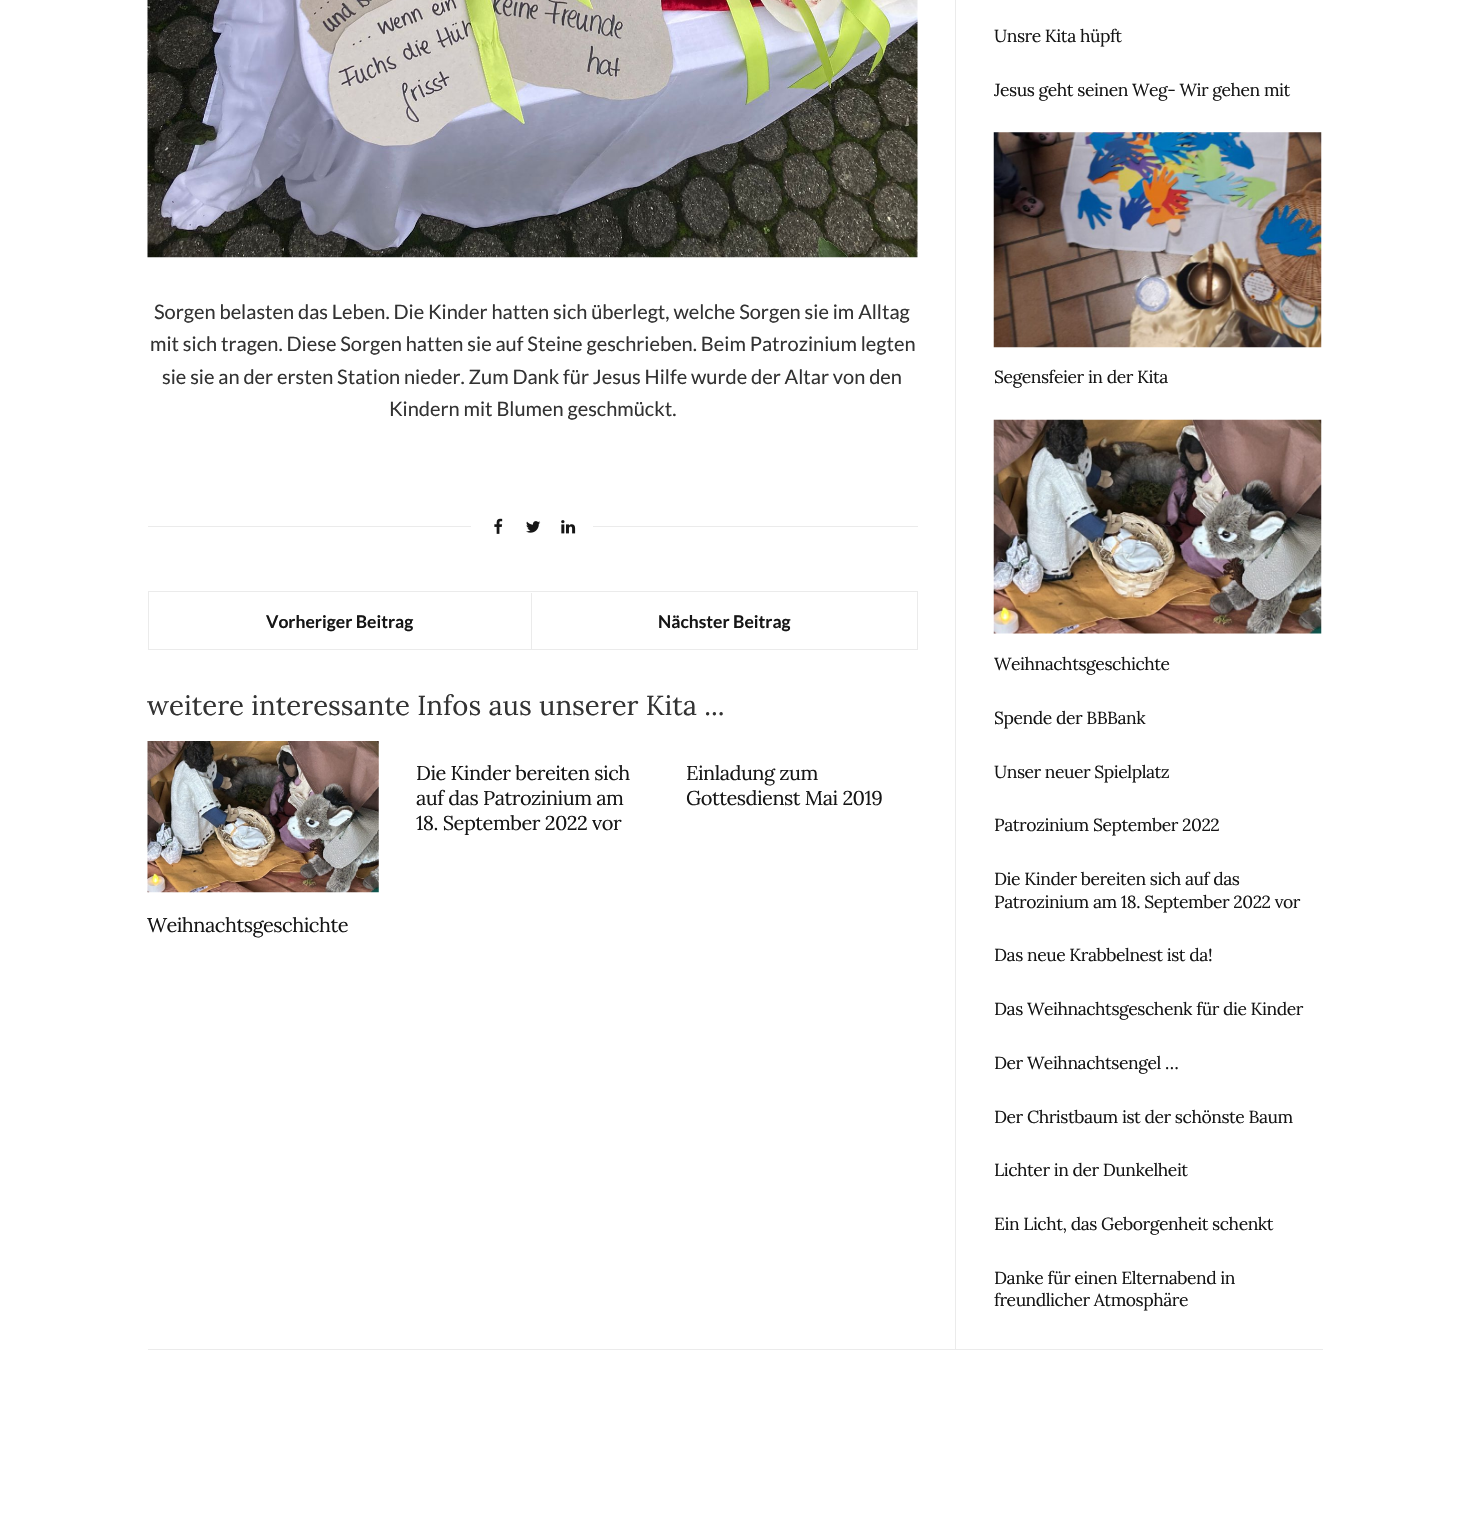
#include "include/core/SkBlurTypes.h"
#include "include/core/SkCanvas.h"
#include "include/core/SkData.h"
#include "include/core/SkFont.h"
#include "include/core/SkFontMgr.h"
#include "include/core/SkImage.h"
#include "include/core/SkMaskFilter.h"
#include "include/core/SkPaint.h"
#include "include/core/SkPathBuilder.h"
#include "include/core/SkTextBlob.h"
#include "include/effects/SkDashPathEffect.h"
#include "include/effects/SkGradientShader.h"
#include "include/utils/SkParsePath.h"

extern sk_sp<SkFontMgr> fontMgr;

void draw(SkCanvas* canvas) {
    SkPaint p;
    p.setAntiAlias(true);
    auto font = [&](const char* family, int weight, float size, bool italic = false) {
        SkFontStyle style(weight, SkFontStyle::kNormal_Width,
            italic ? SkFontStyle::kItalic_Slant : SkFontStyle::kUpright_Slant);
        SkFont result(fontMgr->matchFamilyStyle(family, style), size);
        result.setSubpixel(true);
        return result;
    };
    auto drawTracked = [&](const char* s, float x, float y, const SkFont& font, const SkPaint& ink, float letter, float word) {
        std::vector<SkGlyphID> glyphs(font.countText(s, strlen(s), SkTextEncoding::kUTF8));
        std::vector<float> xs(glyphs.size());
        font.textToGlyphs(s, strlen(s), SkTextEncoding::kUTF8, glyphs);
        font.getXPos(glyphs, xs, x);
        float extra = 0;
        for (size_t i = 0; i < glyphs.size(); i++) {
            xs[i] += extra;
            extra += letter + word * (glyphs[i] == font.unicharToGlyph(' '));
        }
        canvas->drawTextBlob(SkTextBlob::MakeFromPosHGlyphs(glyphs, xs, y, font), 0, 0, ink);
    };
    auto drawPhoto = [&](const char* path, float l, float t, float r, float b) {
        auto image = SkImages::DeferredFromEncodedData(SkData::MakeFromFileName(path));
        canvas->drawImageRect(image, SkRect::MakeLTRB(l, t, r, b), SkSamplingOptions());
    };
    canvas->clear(0xFFFFFFFF);
    drawPhoto("media/1.png", 147, 0, 918, 258);
    auto font1 = font("Lato", 400, 20);
    p.setColor(0xFF333333);
    {
        const struct { const char* s; float x, y; } items[] = {
            {"Sorgen belasten das Leben. Die Kinder hatten sich überlegt, welche Sorgen sie im Alltag", 154, 319},
            {"mit sich tragen. Diese Sorgen hatten sie auf Steine geschrieben. Beim Patrozinium legten", 150, 351},
            {"sie sie an der ersten Station nieder. Zum Dank für Jesus Hilfe wurde der Altar von den", 162, 384},
            {"Kindern mit Blumen geschmückt.", 389, 416},
        };
        for (auto [s, x, y] : items) {
            canvas->drawString(s, x, y, font1, p);
        }
    }
    p.setColor(0xFFEBEBEB);
    canvas->drawRect(SkRect::MakeLTRB(148, 526, 918, 527), p);
    p.setColor(0xFFFFFFFF);
    canvas->drawRect(SkRect::MakeLTRB(471, 526, 593, 527), p);
    drawPhoto("media/2.png", 494, 518, 503, 534);
    drawPhoto("media/3.png", 526, 521, 541, 533);
    drawPhoto("media/4.png", 561, 520, 576, 534);
    p.setStyle(SkPaint::kStroke_Style);
    p.setStrokeWidth(1);
    p.setColor(0xFFEBEBEB);
    canvas->drawRect(SkRect::MakeLTRB(148.5f, 591.5f, 917.5f, 649.5f), p);
    p.setStyle(SkPaint::kFill_Style);
    canvas->drawRect(SkRect::MakeLTRB(531, 593, 532, 649), p);
    auto font2 = font("Lato", 700, 17.5f);
    p.setColor(0xFF161616);
    canvas->drawString("Vorheriger Beitrag", 266, 628, font2, p);
    canvas->drawString("Nächster Beitrag", 658, 628, font2, p);
    auto font3 = font("Lora", 400, 27.5f);
    p.setColor(0xFF333333);
    canvas->drawString("weitere interessante Infos aus unserer Kita ...", 147, 715, font3, p);
    auto font4 = font("Lora", 400, 20);
    p.setColor(0xFF161616);
    {
        const struct { const char* s; float x, y; } items[] = {
            {"Die Kinder bereiten sich", 416, 780},
            {"auf das Patrozinium am", 416, 805},
            {"18. September 2022 vor", 416, 830},
            {"Einladung zum", 686, 780},
            {"Gottesdienst Mai 2019", 686, 805},
        };
        for (auto [s, x, y] : items) {
            drawTracked(s, x, y, font4, p, -0.5f, 0);
        }
    }
    drawPhoto("media/5.png", 147, 741, 379, 893);
    drawTracked("Weihnachtsgeschichte", 147, 932, font4, p, -0.5f, 0);
    p.setColor(0xFFEBEBEB);
    canvas->drawRect(SkRect::MakeLTRB(955, 0, 956, 1349), p);
    auto font5 = font("Lora", 400, 17.5f);
    p.setColor(0xFF161616);
    drawTracked("Unsre Kita hüpft", 994, 42, font5, p, -0.45f, 0);
    drawTracked("Jesus geht seinen Weg- Wir gehen mit", 994, 96, font5, p, -0.45f, 0);
    drawPhoto("media/6.png", 993, 132, 1322, 348);
    drawTracked("Segensfeier in der Kita", 994, 383, font5, p, -0.45f, 0);
    drawPhoto("media/7.png", 993, 419, 1322, 634);
    {
        const struct { const char* s; float x, y; } items[] = {
            {"Weihnachtsgeschichte", 994, 670},
            {"Spende der BBBank", 994, 724},
            {"Unser neuer Spielplatz", 994, 778},
            {"Patrozinium September 2022", 994, 831},
            {"Die Kinder bereiten sich auf das", 994, 885},
            {"Patrozinium am 18. September 2022 vor", 994, 908},
            {"Das neue Krabbelnest ist da!", 994, 961},
            {"Das Weihnachtsgeschenk für die Kinder", 994, 1015},
            {"Der Weihnachtsengel …", 994, 1069},
            {"Der Christbaum ist der schönste Baum", 994, 1123},
            {"Lichter in der Dunkelheit", 994, 1176},
            {"Ein Licht, das Geborgenheit schenkt", 994, 1230},
            {"Danke für einen Elternabend in", 994, 1284},
            {"freundlicher Atmosphäre", 994, 1306},
        };
        for (auto [s, x, y] : items) {
            drawTracked(s, x, y, font5, p, -0.45f, 0);
        }
    }
    p.setColor(0xFFEBEBEB);
    canvas->drawRect(SkRect::MakeLTRB(148, 1349, 1323, 1350), p);
}
